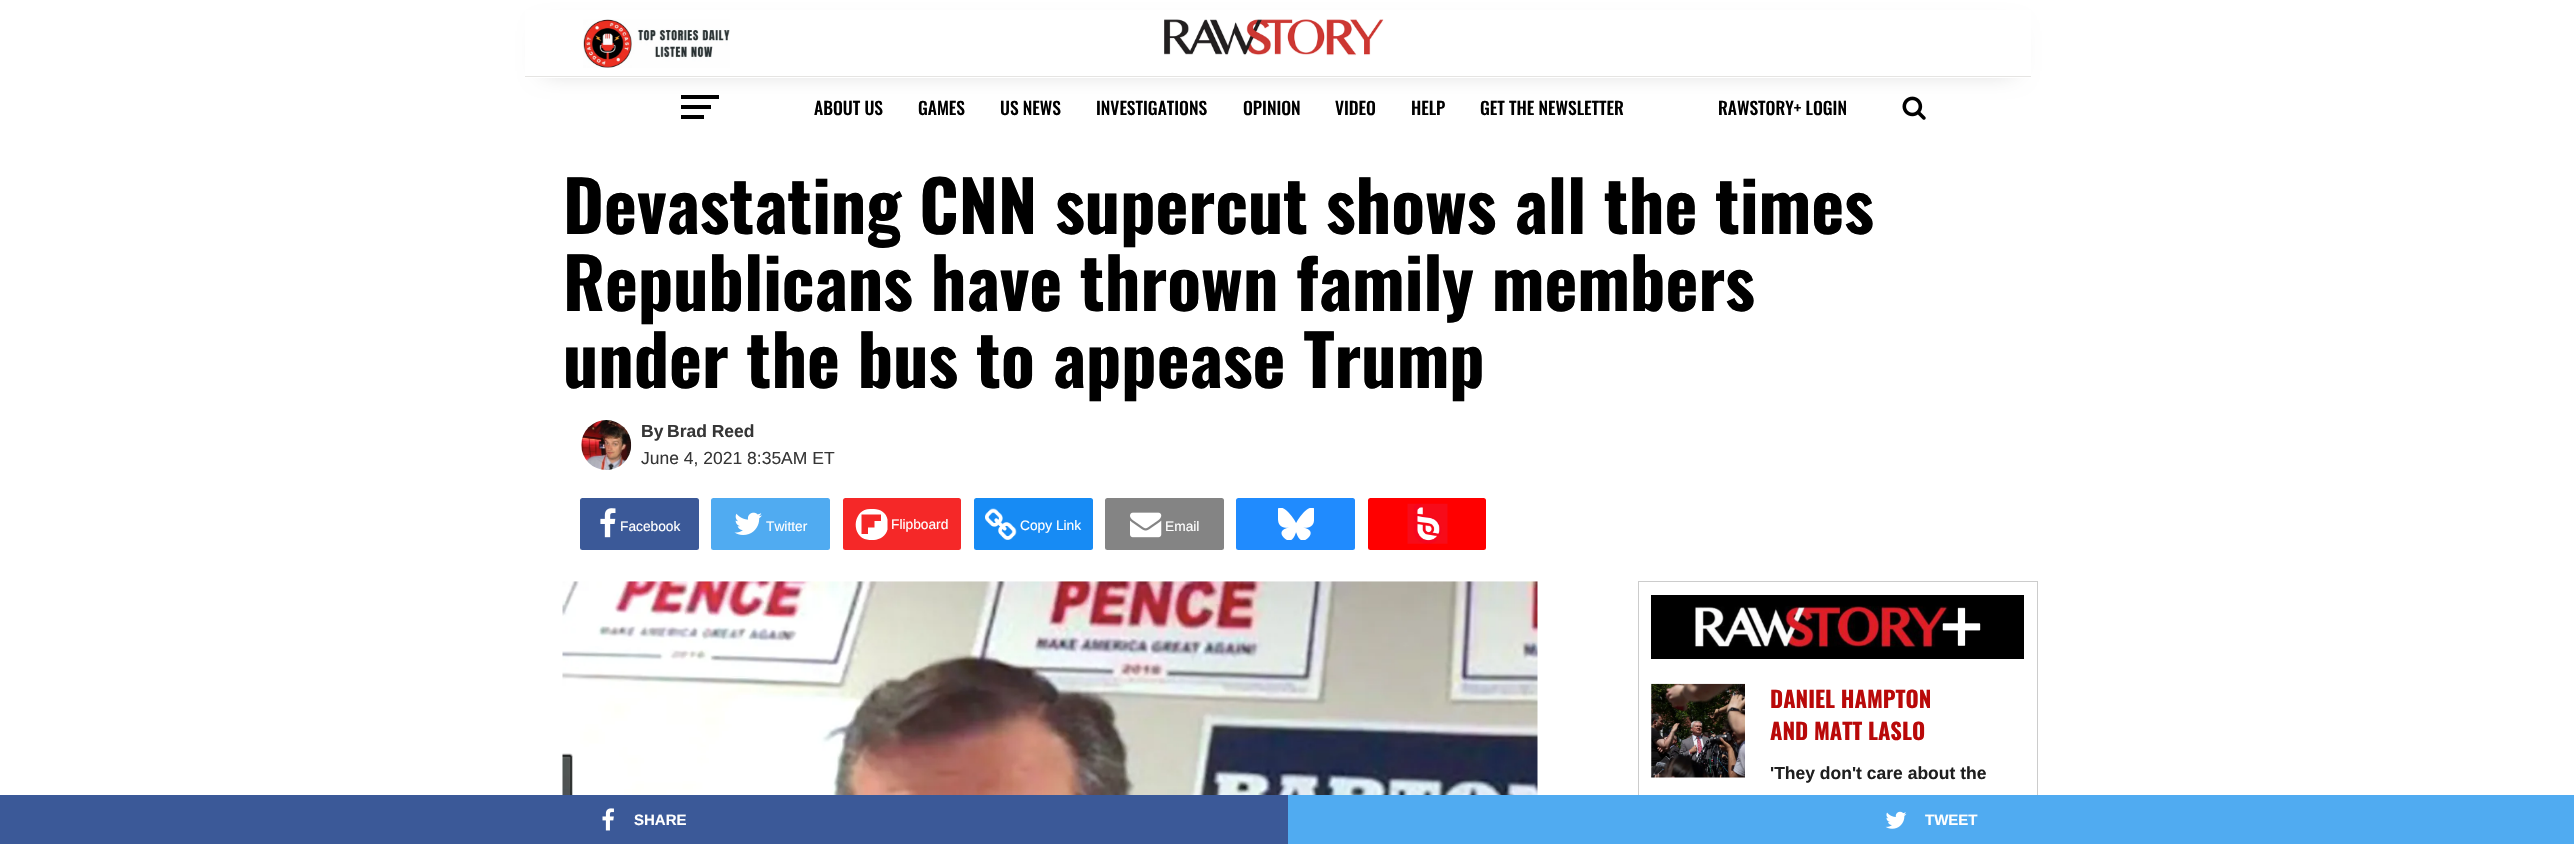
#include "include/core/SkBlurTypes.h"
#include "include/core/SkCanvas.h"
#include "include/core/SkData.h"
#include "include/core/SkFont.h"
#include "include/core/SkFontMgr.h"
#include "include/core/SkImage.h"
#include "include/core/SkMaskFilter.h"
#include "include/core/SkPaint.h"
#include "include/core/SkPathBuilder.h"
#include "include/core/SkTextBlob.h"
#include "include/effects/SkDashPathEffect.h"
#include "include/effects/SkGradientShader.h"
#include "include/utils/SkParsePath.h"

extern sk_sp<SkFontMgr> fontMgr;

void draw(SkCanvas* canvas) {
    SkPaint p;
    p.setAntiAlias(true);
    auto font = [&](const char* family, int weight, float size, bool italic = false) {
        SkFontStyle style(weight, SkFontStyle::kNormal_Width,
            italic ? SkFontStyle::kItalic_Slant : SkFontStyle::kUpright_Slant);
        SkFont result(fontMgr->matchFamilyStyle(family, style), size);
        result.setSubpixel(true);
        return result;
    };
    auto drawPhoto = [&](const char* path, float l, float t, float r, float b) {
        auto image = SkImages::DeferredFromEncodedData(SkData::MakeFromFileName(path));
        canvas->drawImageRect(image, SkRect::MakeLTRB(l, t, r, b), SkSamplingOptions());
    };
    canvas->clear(0xFFFFFFFF);
    p.setColor(0x33000000);
    p.setMaskFilter(SkMaskFilter::MakeBlur(kNormal_SkBlurStyle, 12.5f));
    canvas->drawRect(SkRect::MakeLTRB(544, 31, 2013, 71), p);
    p.setMaskFilter(nullptr);
    p.setColor(0xFFFFFFFF);
    canvas->drawRect(SkRect::MakeLTRB(525, 10, 2031, 78), p);
    p.setColor(0xFFE5E4E2);
    canvas->drawRect(SkRect::MakeLTRB(525, 76, 2031, 77), p);
    drawPhoto("media/1.png", 583, 19, 730, 68);
    drawPhoto("media/2.png", 1164, 19, 1384, 56);
    {
        const struct { float l, t, r, b; SkColor color; } items[] = {
            {681, 95, 719, 99, 0xFF000000},
            {681, 105, 711, 109, 0xFF000000},
            {681, 115, 704, 119, 0xFF000000},
        };
        for (auto [l, t, r, b, color] : items) {
            p.setColor(color);
            canvas->drawRect(SkRect::MakeLTRB(l, t, r, b), p);
        }
    }
    auto font1 = font("Oswald", 500, 17.5f);
    {
        const struct { const char* s; float x, y; } items[] = {
            {"ABOUT US", 814, 115},
            {"GAMES", 918, 115},
            {"US NEWS", 1000, 115},
            {"INVESTIGATIONS", 1096, 115},
            {"OPINION", 1243, 115},
            {"VIDEO", 1335, 115},
            {"HELP", 1411, 115},
            {"GET THE NEWSLETTER", 1480, 115},
            {"RAWSTORY+ LOGIN", 1718, 115},
        };
        for (auto [s, x, y] : items) {
            canvas->drawString(s, x, y, font1, p);
        }
    }
    drawPhoto("media/3.png", 1902, 96, 1926, 120);
    auto font2 = font("Oswald", 700, 70);
    {
        const struct { const char* s; float x, y; } items[] = {
            {"Devastating CNN supercut shows all the times", 563, 234},
            {"Republicans have thrown family members", 563, 311},
            {"under the bus to appease Trump", 563, 388},
        };
        for (auto [s, x, y] : items) {
            canvas->drawString(s, x, y, font2, p);
        }
    }
    drawPhoto("media/4.png", 581, 420, 632, 470);
    auto font3 = font("Liberation Sans", 700, 17.5f);
    p.setColor(0xFF363636);
    canvas->drawString("By", 641, 437, font3, p);
    canvas->drawString("Brad Reed", 667, 437, font3, p);
    auto font4 = font("Liberation Sans", 400, 17.5f);
    canvas->drawString("June 4, 2021 8:35AM ET", 641, 464, font4, p);
    p.setColor(0xFF3B5998);
    canvas->drawRoundRect(SkRect::MakeLTRB(580, 498, 699, 550), 2.5f, 2.5f, p);
    drawPhoto("media/5.png", 600, 508, 616, 538);
    auto font5 = font("Liberation Sans", 400, 13.75f);
    p.setColor(0xFFFFFFFF);
    canvas->drawString("Facebook", 620, 531, font5, p);
    p.setColor(0xFF50ABF1);
    canvas->drawRoundRect(SkRect::MakeLTRB(711, 498, 830, 550), 2.5f, 2.5f, p);
    drawPhoto("media/6.png", 734, 512, 762, 535);
    p.setColor(0xFFFFFFFF);
    canvas->drawString("Twitter", 766, 531, font5, p);
    p.setColor(0xFFF52828);
    canvas->drawRoundRect(SkRect::MakeLTRB(843, 498, 961, 550), 2.5f, 2.5f, p);
    p.setColor(0xFFFFFFFF);
    canvas->drawPath(SkPathBuilder(SkPathFillType::kEvenOdd).moveTo(870, 509).cubicTo(854, 509, 850.5f, 533, 864.5f, 539).cubicTo(867.5f, 540, 871, 540, 874, 540).cubicTo(880, 539.5f, 886, 536, 887.5f, 529.5f).lineTo(887.5f, 519.5f).cubicTo(886.5f, 513, 880, 509, 874, 509).close().moveTo(881, 521).lineTo(881, 514.5f).lineTo(861.5f, 514.5f).lineTo(861.5f, 534).lineTo(868, 534).lineTo(868, 527.5f).lineTo(874.5f, 527.5f).lineTo(874.5f, 521).close().detach(), p);
    canvas->drawString("Flipboard", 891, 529, font5, p);
    p.setColor(0xFF178BF4);
    canvas->drawRoundRect(SkRect::MakeLTRB(974, 498, 1093, 550), 2.5f, 2.5f, p);
    drawPhoto("media/7.png", 985, 508, 1017, 540);
    p.setColor(0xFFFFFFFF);
    canvas->drawString("Copy Link", 1020, 530, font5, p);
    p.setColor(0xFF848484);
    canvas->drawRoundRect(SkRect::MakeLTRB(1105, 498, 1224, 550), 2.5f, 2.5f, p);
    drawPhoto("media/8.png", 1130, 512, 1162, 538);
    p.setColor(0xFFFFFFFF);
    canvas->drawString("Email", 1165, 531, font5, p);
    p.setColor(0xFF208BFE);
    canvas->drawRoundRect(SkRect::MakeLTRB(1236, 498, 1355, 550), 2.5f, 2.5f, p);
    drawPhoto("media/9.png", 1278, 508, 1314, 540);
    p.setColor(0xFFFF0000);
    canvas->drawRoundRect(SkRect::MakeLTRB(1368, 498, 1486, 550), 2.5f, 2.5f, p);
    drawPhoto("media/10.png", 1407, 503, 1448, 544);
    p.setStyle(SkPaint::kStroke_Style);
    p.setStrokeWidth(1);
    p.setColor(0xFFCCCCCC);
    canvas->drawRect(SkRect::MakeLTRB(1638.5f, 581.5f, 2037.5f, 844.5f), p);
    p.setStyle(SkPaint::kFill_Style);
    p.setColor(0xFF000000);
    canvas->drawRect(SkRect::MakeLTRB(1651, 595, 2024, 659), p);
    drawPhoto("media/11.png", 1694, 606, 1981, 648);
    drawPhoto("media/12.png", 1651, 683, 1745, 778);
    auto font6 = font("Oswald", 700, 22.5f);
    p.setColor(0xFFB90909);
    canvas->drawString("DANIEL HAMPTON", 1770, 708, font6, p);
    canvas->drawString("AND MATT LASLO", 1770, 740, font6, p);
    p.setColor(0xFF1F1F1F);
    canvas->drawString("'They don't care about the", 1770, 779, font3, p);
    drawPhoto("media/13.png", 562, 581, 1538, 795);
    p.setColor(0xFF3B5998);
    canvas->drawRect(SkRect::MakeLTRB(0, 795, 1288, 844), p);
    drawPhoto("media/14.png", 602, 808, 614, 831);
    auto font7 = font("Liberation Sans", 700, 15);
    p.setColor(0xFFFFFFFF);
    canvas->drawString("SHARE", 634, 825, font7, p);
    p.setColor(0xFF50ABF1);
    canvas->drawRect(SkRect::MakeLTRB(1288, 795, 2574, 844), p);
    drawPhoto("media/15.png", 1885, 811, 1907, 829);
    p.setColor(0xFFFFFFFF);
    canvas->drawString("TWEET", 1925, 825, font7, p);
}
